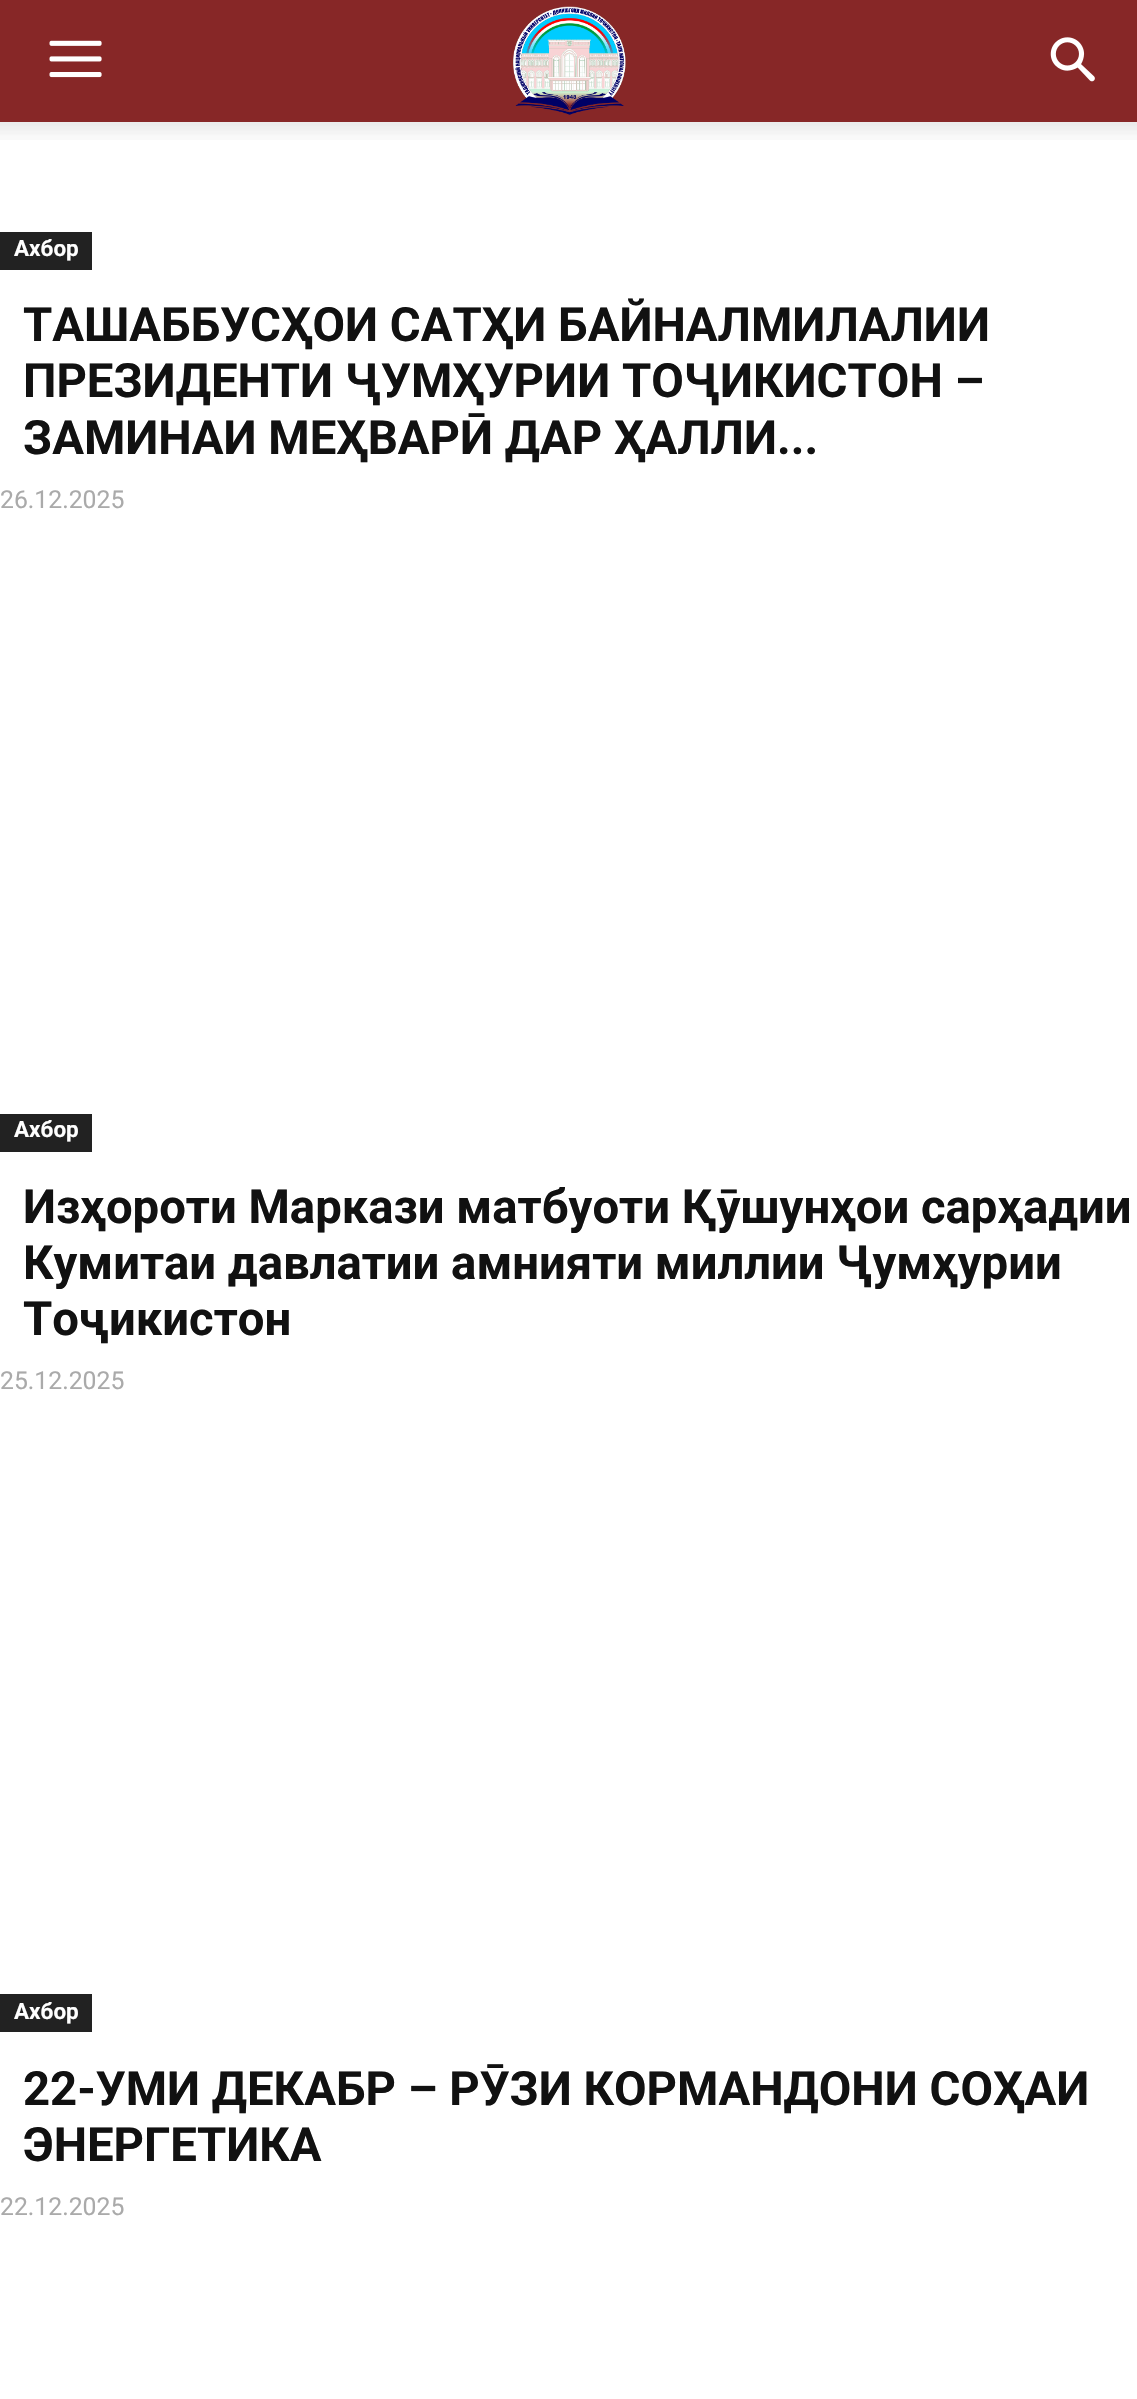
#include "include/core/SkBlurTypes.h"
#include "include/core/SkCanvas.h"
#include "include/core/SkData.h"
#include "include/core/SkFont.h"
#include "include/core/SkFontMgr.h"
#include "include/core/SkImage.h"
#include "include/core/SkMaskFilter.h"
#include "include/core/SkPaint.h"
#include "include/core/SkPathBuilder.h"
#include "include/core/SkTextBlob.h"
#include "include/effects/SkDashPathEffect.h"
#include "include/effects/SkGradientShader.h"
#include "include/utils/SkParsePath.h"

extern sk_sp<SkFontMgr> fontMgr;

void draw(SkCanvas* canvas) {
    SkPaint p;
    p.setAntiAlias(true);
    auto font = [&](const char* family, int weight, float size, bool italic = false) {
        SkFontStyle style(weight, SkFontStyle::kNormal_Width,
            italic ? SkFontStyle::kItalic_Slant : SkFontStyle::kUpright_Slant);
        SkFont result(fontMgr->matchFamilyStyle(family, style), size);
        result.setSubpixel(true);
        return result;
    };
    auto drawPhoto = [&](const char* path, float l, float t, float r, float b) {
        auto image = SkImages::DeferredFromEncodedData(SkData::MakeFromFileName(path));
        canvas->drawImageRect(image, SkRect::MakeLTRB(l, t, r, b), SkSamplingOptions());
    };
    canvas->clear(0xFFFFFFFF);
    p.setColor(0xFF872727);
    canvas->drawRect(SkRect::MakeLTRB(0, 0, 1137, 122), p);
    drawPhoto("media/1.png", 49, 40, 102, 78);
    drawPhoto("media/2.png", 513, 6, 626, 115);
    drawPhoto("media/3.png", 1050, 37, 1095, 82);
    drawPhoto("media/4.png", 0, 122, 1137, 140);
    p.setColor(0xFF222222);
    canvas->drawRect(SkRect::MakeLTRB(0, 232, 92, 270), p);
    auto font1 = font("Roboto", 700, 22.5f);
    p.setColor(0xFFFFFFFF);
    canvas->drawString("Ахбор", 14, 256, font1, p);
    auto font2 = font("Roboto", 700, 47.25f);
    p.setColor(0xFF111111);
    {
        const struct { const char* s; float x, y; } items[] = {
            {"ТАШАББУСҲОИ САТҲИ БАЙНАЛМИЛАЛИИ", 23, 341},
            {"ПРЕЗИДЕНТИ ҶУМҲУРИИ ТОҶИКИСТОН –", 23, 397},
            {"ЗАМИНАИ МЕҲВАРӢ ДАР ҲАЛЛИ...", 23, 454},
        };
        for (auto [s, x, y] : items) {
            canvas->drawString(s, x, y, font2, p);
        }
    }
    auto font3 = font("Roboto", 400, 24.75f);
    p.setColor(0xFFAAAAAA);
    canvas->drawString("26.12.2025", 0, 508, font3, p);
    p.setColor(0xFF222222);
    canvas->drawRect(SkRect::MakeLTRB(0, 1114, 92, 1152), p);
    p.setColor(0xFFFFFFFF);
    canvas->drawString("Ахбор", 14, 1137, font1, p);
    p.setColor(0xFF111111);
    {
        const struct { const char* s; float x, y; } items[] = {
            {"Изҳороти Маркази матбуоти Қӯшунҳои сарҳадии", 23, 1223},
            {"Кумитаи давлатии амнияти миллии Ҷумҳурии", 23, 1279},
            {"Тоҷикистон", 23, 1335},
        };
        for (auto [s, x, y] : items) {
            canvas->drawString(s, x, y, font2, p);
        }
    }
    p.setColor(0xFFAAAAAA);
    canvas->drawString("25.12.2025", 0, 1389, font3, p);
    p.setColor(0xFF222222);
    canvas->drawRect(SkRect::MakeLTRB(0, 1994, 92, 2032), p);
    p.setColor(0xFFFFFFFF);
    canvas->drawString("Ахбор", 14, 2019, font1, p);
    p.setColor(0xFF111111);
    canvas->drawString("22-УМИ ДЕКАБР – РӮЗИ КОРМАНДОНИ СОҲАИ", 23, 2105, font2, p);
    canvas->drawString("ЭНЕРГЕТИКА", 23, 2161, font2, p);
    p.setColor(0xFFAAAAAA);
    canvas->drawString("22.12.2025", 0, 2215, font3, p);
}
